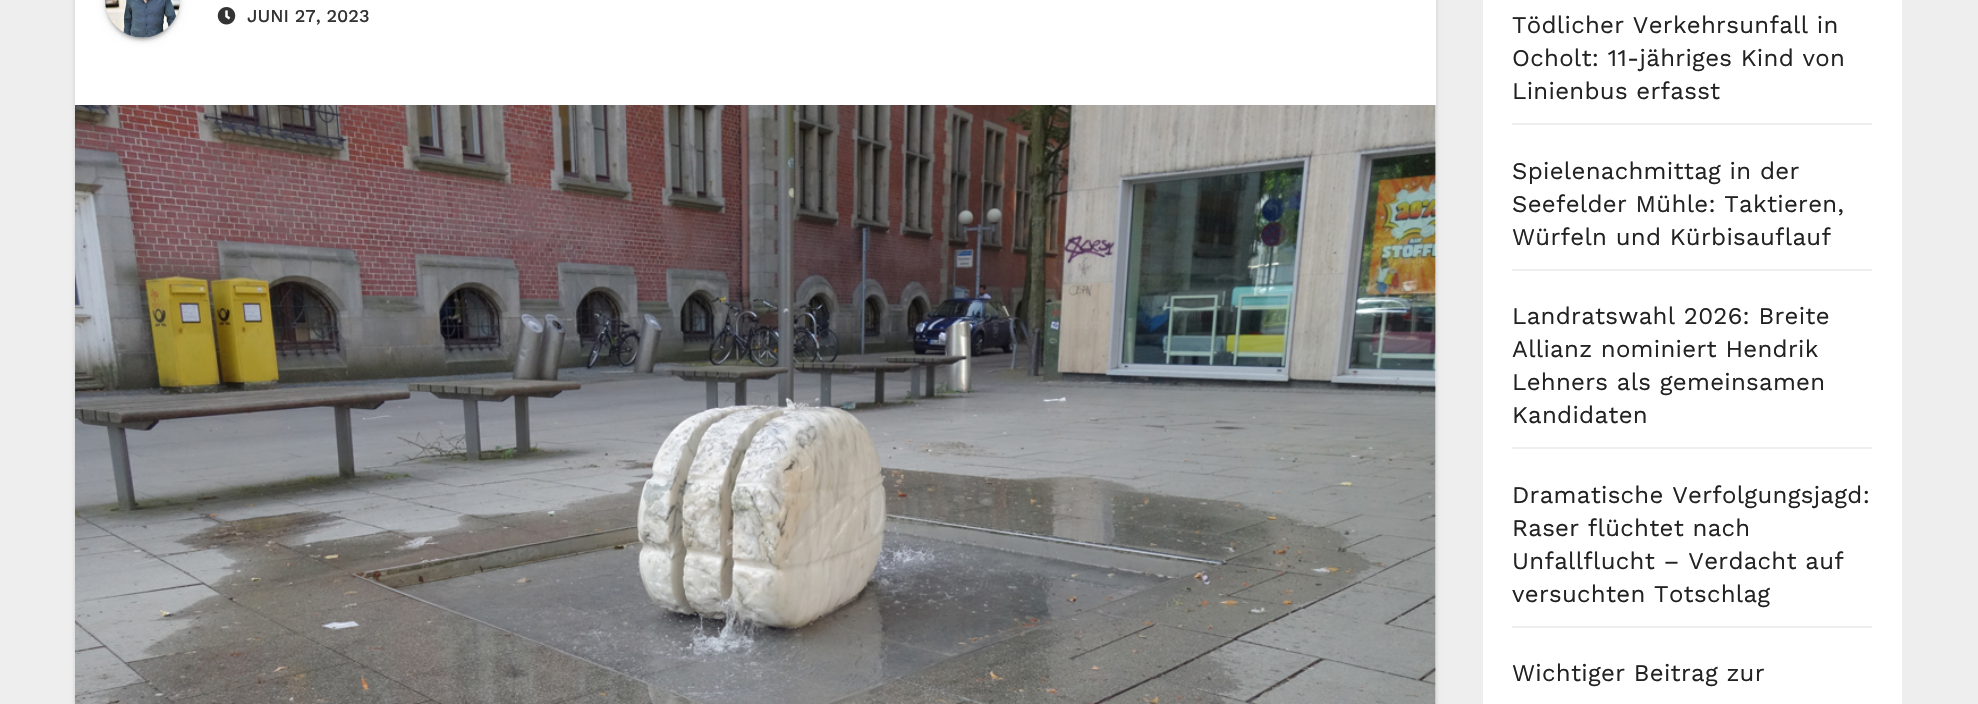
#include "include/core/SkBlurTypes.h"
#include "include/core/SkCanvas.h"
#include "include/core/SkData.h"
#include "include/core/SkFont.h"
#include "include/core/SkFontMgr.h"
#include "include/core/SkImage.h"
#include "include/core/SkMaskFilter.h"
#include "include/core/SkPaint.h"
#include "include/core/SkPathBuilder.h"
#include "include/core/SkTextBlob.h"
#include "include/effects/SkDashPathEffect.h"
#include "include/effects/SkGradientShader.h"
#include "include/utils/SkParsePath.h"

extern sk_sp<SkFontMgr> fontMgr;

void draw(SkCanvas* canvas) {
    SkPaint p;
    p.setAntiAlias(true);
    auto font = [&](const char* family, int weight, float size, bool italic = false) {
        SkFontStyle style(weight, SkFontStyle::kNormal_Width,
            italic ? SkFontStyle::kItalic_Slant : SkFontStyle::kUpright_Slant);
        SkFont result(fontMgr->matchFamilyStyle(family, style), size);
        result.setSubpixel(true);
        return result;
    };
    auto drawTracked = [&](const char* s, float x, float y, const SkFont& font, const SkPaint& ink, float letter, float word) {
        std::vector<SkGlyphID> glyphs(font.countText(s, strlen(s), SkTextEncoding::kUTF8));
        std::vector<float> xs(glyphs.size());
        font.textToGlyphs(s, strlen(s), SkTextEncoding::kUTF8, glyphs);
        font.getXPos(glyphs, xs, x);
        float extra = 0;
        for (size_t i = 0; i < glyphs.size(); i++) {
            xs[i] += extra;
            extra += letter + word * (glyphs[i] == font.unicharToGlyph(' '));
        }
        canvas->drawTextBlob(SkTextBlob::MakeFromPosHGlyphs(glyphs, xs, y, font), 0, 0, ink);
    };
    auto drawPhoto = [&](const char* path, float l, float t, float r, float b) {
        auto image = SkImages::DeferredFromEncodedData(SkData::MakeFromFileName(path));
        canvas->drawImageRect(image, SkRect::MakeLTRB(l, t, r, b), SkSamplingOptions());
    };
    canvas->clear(0xFFEEEEEE);
    p.setColor(0x26000000);
    p.setMaskFilter(SkMaskFilter::MakeBlur(kNormal_SkBlurStyle, 2));
    canvas->drawRect(SkRect::MakeLTRB(75, -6, 1436, 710), p);
    p.setMaskFilter(nullptr);
    p.setColor(0xFFFFFFFF);
    canvas->drawRect(SkRect::MakeLTRB(75, 0, 1436, 704), p);
    p.setColor(0x1F000000);
    p.setMaskFilter(SkMaskFilter::MakeBlur(kNormal_SkBlurStyle, 4));
    canvas->drawRoundRect(SkRect::MakeLTRB(105, -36, 180, 39), 37.5f, 37.5f, p);
    p.setMaskFilter(nullptr);
    p.setColor(0x33000000);
    p.setMaskFilter(SkMaskFilter::MakeBlur(kNormal_SkBlurStyle, 1));
    canvas->drawRoundRect(SkRect::MakeLTRB(108, -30, 177, 39), 34.5f, 34.5f, p);
    p.setMaskFilter(nullptr);
    p.setColor(0x24000000);
    p.setMaskFilter(SkMaskFilter::MakeBlur(kNormal_SkBlurStyle, 1.5f));
    canvas->drawRoundRect(SkRect::MakeLTRB(105, -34, 180, 41), 37.5f, 37.5f, p);
    p.setMaskFilter(nullptr);
    drawPhoto("media/1.png", 105, 0, 180, 38);
    drawPhoto("media/2.png", 217, 7, 236, 25);
    auto font1 = font("Work Sans", 500, 18);
    p.setColor(0xFF333333);
    canvas->drawString("JUNI 27, 2023", 247, 22, font1, p);
    drawPhoto("media/3.png", 75, 105, 1436, 704);
    p.setColor(0xFFFFFFFF);
    canvas->drawRect(SkRect::MakeLTRB(1483, 0, 1902, 704), p);
    p.setColor(0xFFEEEEEE);
    canvas->drawRect(SkRect::MakeLTRB(1512, 123, 1872, 125), p);
    auto font2 = font("Work Sans", 400, 24);
    p.setColor(0xFF222222);
    {
        const struct { const char* s; float x, y; } items[] = {
            {"Tödlicher Verkehrsunfall in", 1512, 33},
            {"Ocholt: 11-jähriges Kind von", 1512, 66},
            {"Linienbus erfasst", 1512, 99},
        };
        for (auto [s, x, y] : items) {
            drawTracked(s, x, y, font2, p, 0.3f, 0);
        }
    }
    p.setColor(0xFFEEEEEE);
    canvas->drawRect(SkRect::MakeLTRB(1512, 269, 1872, 271), p);
    p.setColor(0xFF222222);
    {
        const struct { const char* s; float x, y; } items[] = {
            {"Spielenachmittag in der", 1512, 179},
            {"Seefelder Mühle: Taktieren,", 1512, 212},
            {"Würfeln und Kürbisauflauf", 1512, 245},
        };
        for (auto [s, x, y] : items) {
            drawTracked(s, x, y, font2, p, 0.3f, 0);
        }
    }
    p.setColor(0xFFEEEEEE);
    canvas->drawRect(SkRect::MakeLTRB(1512, 447, 1872, 449), p);
    p.setColor(0xFF222222);
    {
        const struct { const char* s; float x, y; } items[] = {
            {"Landratswahl 2026: Breite", 1512, 324},
            {"Allianz nominiert Hendrik", 1512, 357},
            {"Lehners als gemeinsamen", 1512, 390},
            {"Kandidaten", 1512, 423},
        };
        for (auto [s, x, y] : items) {
            drawTracked(s, x, y, font2, p, 0.3f, 0);
        }
    }
    p.setColor(0xFFEEEEEE);
    canvas->drawRect(SkRect::MakeLTRB(1512, 626, 1872, 628), p);
    p.setColor(0xFF222222);
    {
        const struct { const char* s; float x, y; } items[] = {
            {"Dramatische Verfolgungsjagd:", 1512, 503},
            {"Raser flüchtet nach", 1512, 536},
            {"Unfallflucht – Verdacht auf", 1512, 569},
            {"versuchten Totschlag", 1512, 602},
            {"Wichtiger Beitrag zur", 1512, 681},
        };
        for (auto [s, x, y] : items) {
            drawTracked(s, x, y, font2, p, 0.3f, 0);
        }
    }
}
